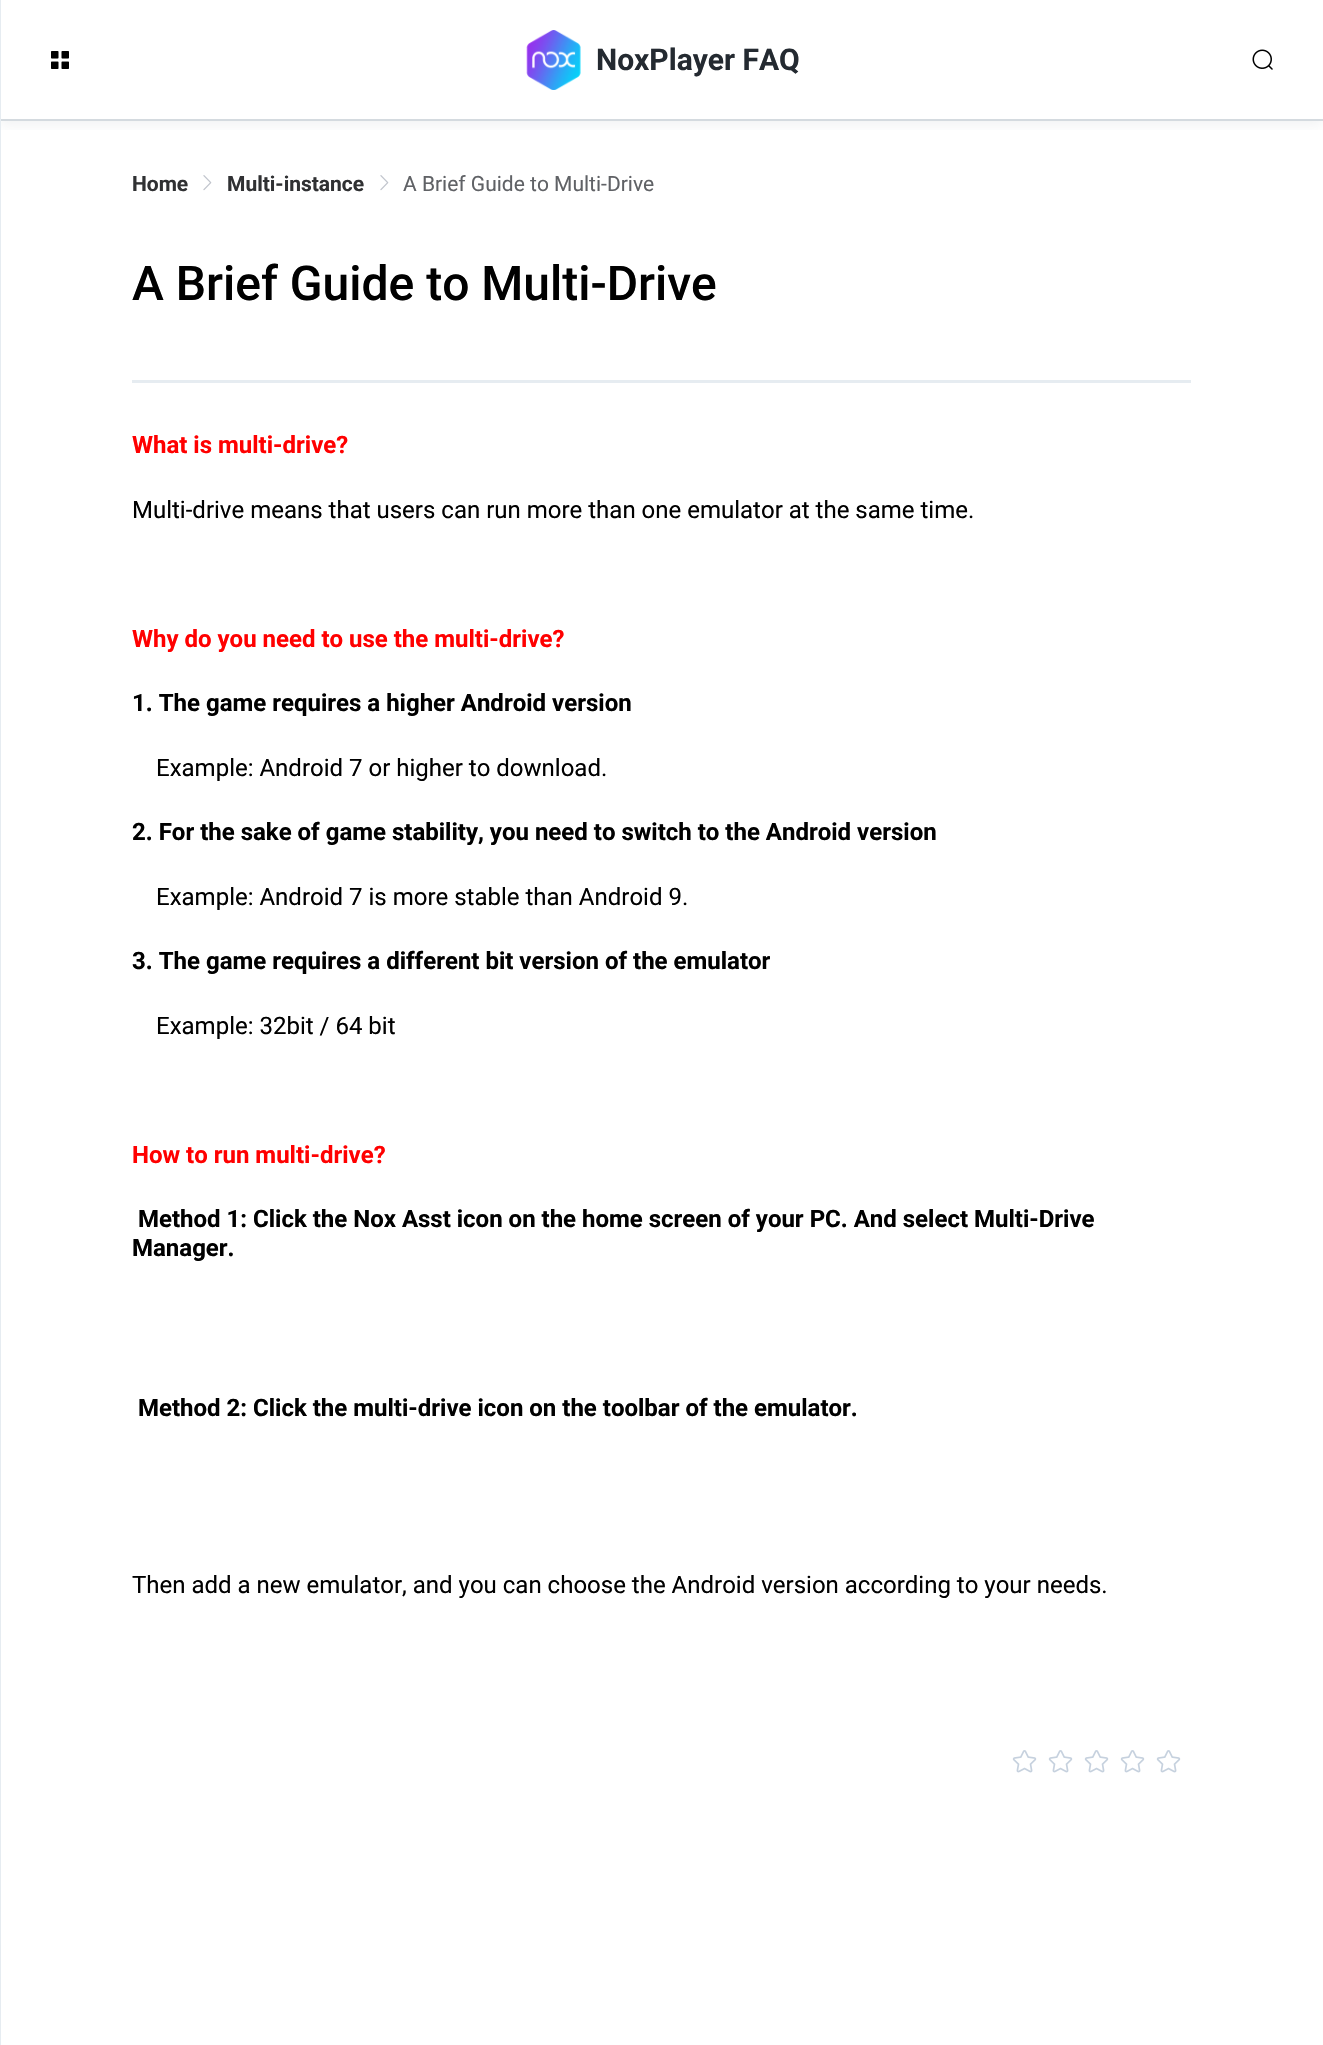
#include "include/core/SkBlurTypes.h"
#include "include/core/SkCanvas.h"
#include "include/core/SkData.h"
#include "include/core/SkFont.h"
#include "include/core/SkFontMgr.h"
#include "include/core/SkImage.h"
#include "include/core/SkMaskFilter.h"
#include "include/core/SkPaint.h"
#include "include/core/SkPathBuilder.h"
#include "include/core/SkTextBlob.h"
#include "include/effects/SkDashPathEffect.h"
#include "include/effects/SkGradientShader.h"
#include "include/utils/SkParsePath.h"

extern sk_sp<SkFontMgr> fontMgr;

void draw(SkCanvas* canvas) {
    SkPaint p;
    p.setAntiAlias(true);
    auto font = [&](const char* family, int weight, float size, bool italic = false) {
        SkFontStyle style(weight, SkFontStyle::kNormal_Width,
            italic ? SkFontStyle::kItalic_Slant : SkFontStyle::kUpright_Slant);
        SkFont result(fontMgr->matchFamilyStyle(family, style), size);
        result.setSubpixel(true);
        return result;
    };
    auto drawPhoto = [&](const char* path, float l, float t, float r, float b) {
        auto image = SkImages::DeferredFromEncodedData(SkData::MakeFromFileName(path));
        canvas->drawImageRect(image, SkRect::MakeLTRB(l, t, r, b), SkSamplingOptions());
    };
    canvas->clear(0xFFFFFFFF);
    canvas->save();
    canvas->clipRect(SkRect::MakeLTRB(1, 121, 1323, 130));
    p.setColor(0x1A74818D);
    p.setMaskFilter(SkMaskFilter::MakeBlur(kNormal_SkBlurStyle, 6));
    canvas->drawRect(SkRect::MakeLTRB(0, 5, 1323, 125), p);
    p.setMaskFilter(nullptr);
    canvas->restore();
    p.setColor(0xFFD4DADF);
    canvas->drawRect(SkRect::MakeLTRB(0, 119, 1323, 121), p);
    drawPhoto("media/1.png", 51, 51, 69, 69);
    drawPhoto("media/2.png", 526, 30, 581, 90);
    auto font1 = font("Roboto", 700, 30);
    p.setColor(0xFF242A31);
    canvas->drawString("NoxPlayer FAQ", 596, 70, font1, p);
    drawPhoto("media/3.png", 1252, 49, 1273, 70);
    p.setColor(0xFFE6ECF1);
    canvas->drawRect(SkRect::MakeLTRB(0, 0, 1, 2045), p);
    auto font2 = font("Roboto", 700, 21);
    p.setColor(0xFF303133);
    canvas->drawString("Home", 132, 191, font2, p);
    drawPhoto("media/4.png", 203, 175, 212, 191);
    canvas->drawString("Multi-instance", 227, 191, font2, p);
    drawPhoto("media/4.png", 380, 175, 389, 191);
    auto font3 = font("Roboto", 400, 21);
    p.setColor(0xFF606266);
    canvas->drawString("A Brief Guide to Multi-Drive", 403, 191, font3, p);
    p.setColor(0xFFE6ECF1);
    canvas->drawRect(SkRect::MakeLTRB(132, 380, 1191, 383), p);
    auto font4 = font("Roboto", 500, 48);
    p.setColor(0xFF000000);
    canvas->drawString("A Brief Guide to Multi-Drive", 132, 300, font4, p);
    auto font5 = font("Roboto", 700, 24);
    p.setColor(0xFFFF0000);
    canvas->drawString("What is multi-drive?", 132, 453, font5, p);
    auto font6 = font("Roboto", 400, 24);
    p.setColor(0xFF000000);
    canvas->drawString("Multi-drive means that users can run more than one emulator at the same time.", 132, 518, font6, p);
    p.setColor(0xFFFF0000);
    canvas->drawString("Why do you need to use the multi-drive?", 132, 647, font5, p);
    p.setColor(0xFF000000);
    canvas->drawString("1. The game requires a higher Android version", 132, 711, font5, p);
    canvas->drawString("Example: Android 7 or higher to download.", 156, 776, font6, p);
    canvas->drawString("2. For the sake of game stability, you need to switch to the Android version", 132, 840, font5, p);
    canvas->drawString("Example: Android 7 is more stable than Android 9.", 156, 905, font6, p);
    canvas->drawString("3. The game requires a different bit version of the emulator", 132, 969, font5, p);
    canvas->drawString("Example: 32bit / 64 bit", 156, 1034, font6, p);
    p.setColor(0xFFFF0000);
    canvas->drawString("How to run multi-drive?", 132, 1163, font5, p);
    p.setColor(0xFF000000);
    {
        const struct { const char* s; float x, y; } items[] = {
            {"Method 1: Click the Nox Asst icon on the home screen of your PC. And select Multi-Drive", 138, 1227},
            {"Manager.", 132, 1256},
            {"Method 2: Click the multi-drive icon on the toolbar of the emulator.", 138, 1416},
        };
        for (auto [s, x, y] : items) {
            canvas->drawString(s, x, y, font5, p);
        }
    }
    canvas->drawString("Then add a new emulator, and you can choose the Android version according to your needs.", 132, 1593, font6, p);
    drawPhoto("media/5.png", 1012, 1750, 1037, 1773);
    drawPhoto("media/5.png", 1048, 1750, 1073, 1773);
    drawPhoto("media/5.png", 1084, 1750, 1109, 1773);
    drawPhoto("media/5.png", 1120, 1750, 1145, 1773);
    drawPhoto("media/5.png", 1156, 1750, 1181, 1773);
}
